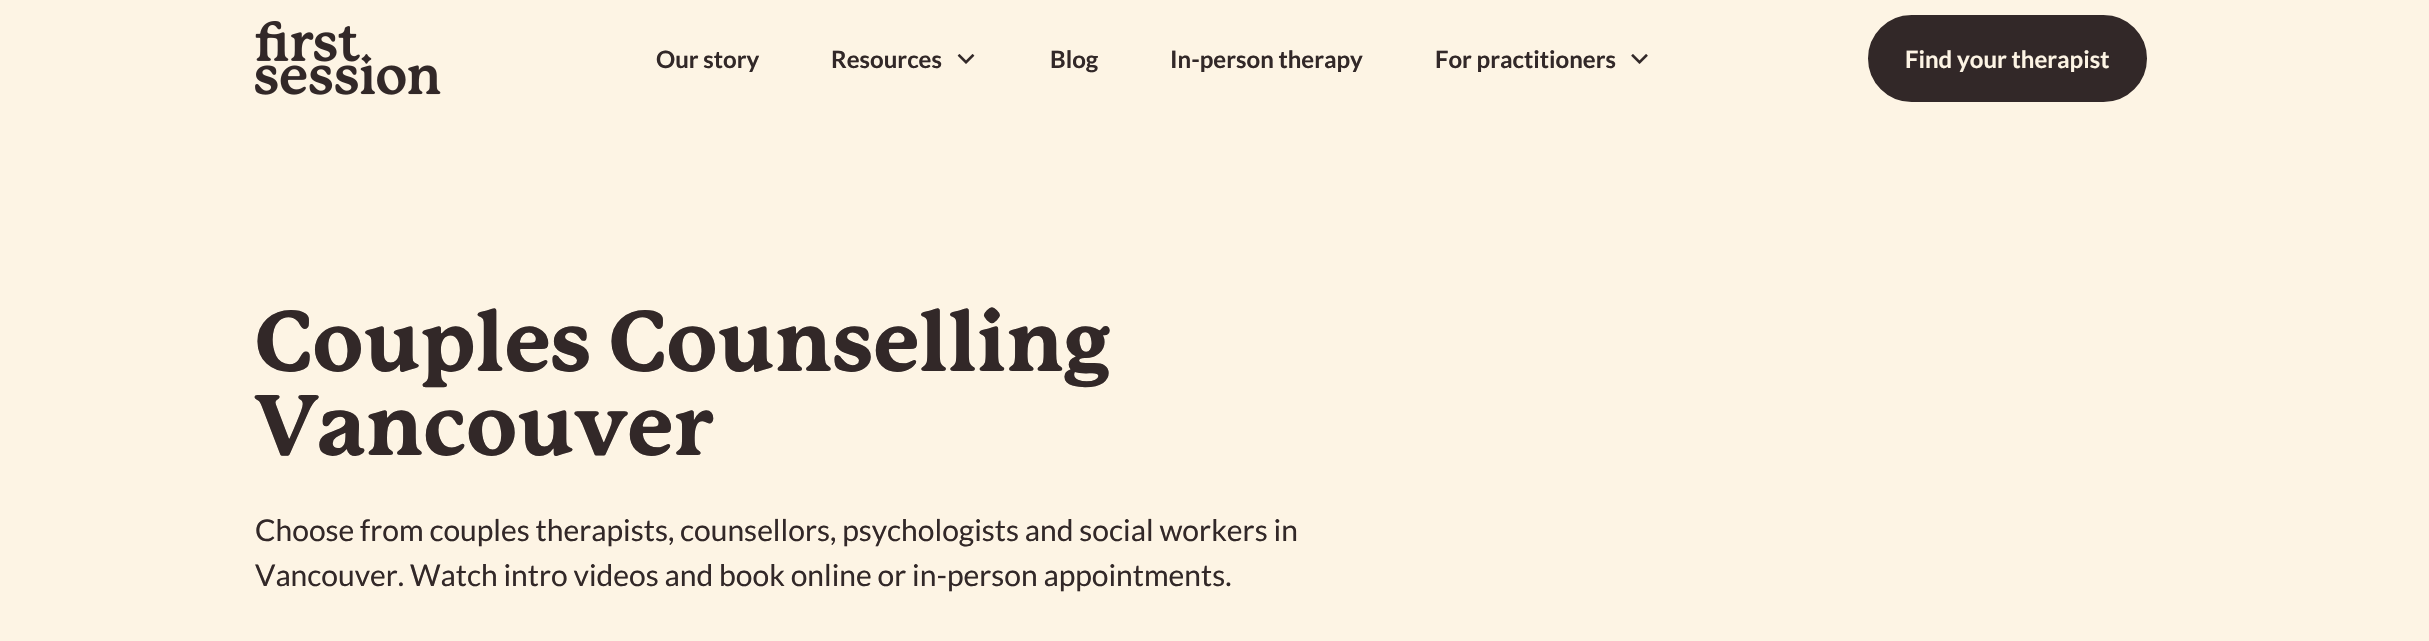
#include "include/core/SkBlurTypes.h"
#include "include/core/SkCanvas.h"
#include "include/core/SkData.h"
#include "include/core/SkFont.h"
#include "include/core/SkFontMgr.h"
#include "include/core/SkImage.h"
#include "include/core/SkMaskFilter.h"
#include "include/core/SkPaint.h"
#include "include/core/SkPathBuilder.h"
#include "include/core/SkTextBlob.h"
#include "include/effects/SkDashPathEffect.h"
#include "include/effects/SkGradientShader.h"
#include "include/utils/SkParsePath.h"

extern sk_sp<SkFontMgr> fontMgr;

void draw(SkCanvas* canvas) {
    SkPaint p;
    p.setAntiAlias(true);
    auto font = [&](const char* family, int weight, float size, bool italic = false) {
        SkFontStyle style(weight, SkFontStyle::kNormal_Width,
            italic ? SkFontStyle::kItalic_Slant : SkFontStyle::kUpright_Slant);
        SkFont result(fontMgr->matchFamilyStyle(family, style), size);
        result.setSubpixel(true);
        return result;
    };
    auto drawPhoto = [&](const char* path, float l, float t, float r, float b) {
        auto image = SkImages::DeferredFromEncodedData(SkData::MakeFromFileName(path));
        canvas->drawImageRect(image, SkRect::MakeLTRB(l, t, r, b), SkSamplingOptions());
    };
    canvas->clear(0xFFFDF4E4);
    drawPhoto("media/1.png", 255, 21, 441, 95);
    auto font1 = font("Lato", 700, 24);
    p.setColor(0xFF322828);
    canvas->drawString("Our story", 656, 68, font1, p);
    canvas->drawString("Resources", 831, 68, font1, p);
    drawPhoto("media/2.png", 957, 54, 975, 64);
    {
        const struct { const char* s; float x, y; } items[] = {
            {"Blog", 1050, 68},
            {"In-person therapy", 1170, 68},
            {"For practitioners", 1435, 68},
        };
        for (auto [s, x, y] : items) {
            canvas->drawString(s, x, y, font1, p);
        }
    }
    drawPhoto("media/3.png", 1631, 54, 1648, 64);
    canvas->drawRoundRect(SkRect::MakeLTRB(1869, 16, 2146, 101), 42.5f, 42.5f, p);
    p.setStyle(SkPaint::kStroke_Style);
    p.setStrokeWidth(2);
    canvas->drawRoundRect(SkRect::MakeLTRB(1869, 16, 2146, 101), 42.5f, 42.5f, p);
    p.setStyle(SkPaint::kFill_Style);
    p.setColor(0xFFFDF4E4);
    canvas->drawString("Find your therapist", 1905, 68, font1, p);
    auto font2 = font("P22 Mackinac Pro", 800, 84);
    p.setColor(0xFF322828);
    canvas->drawString("Couples Counselling", 255, 371, font2, p);
    canvas->drawString("Vancouver", 255, 455, font2, p);
    auto font3 = font("Lato", 400, 30);
    canvas->drawString("Choose from couples therapists, counsellors, psychologists and social workers in", 255, 541, font3, p);
    canvas->drawString("Vancouver. Watch intro videos and book online or in-person appointments.", 255, 586, font3, p);
}
